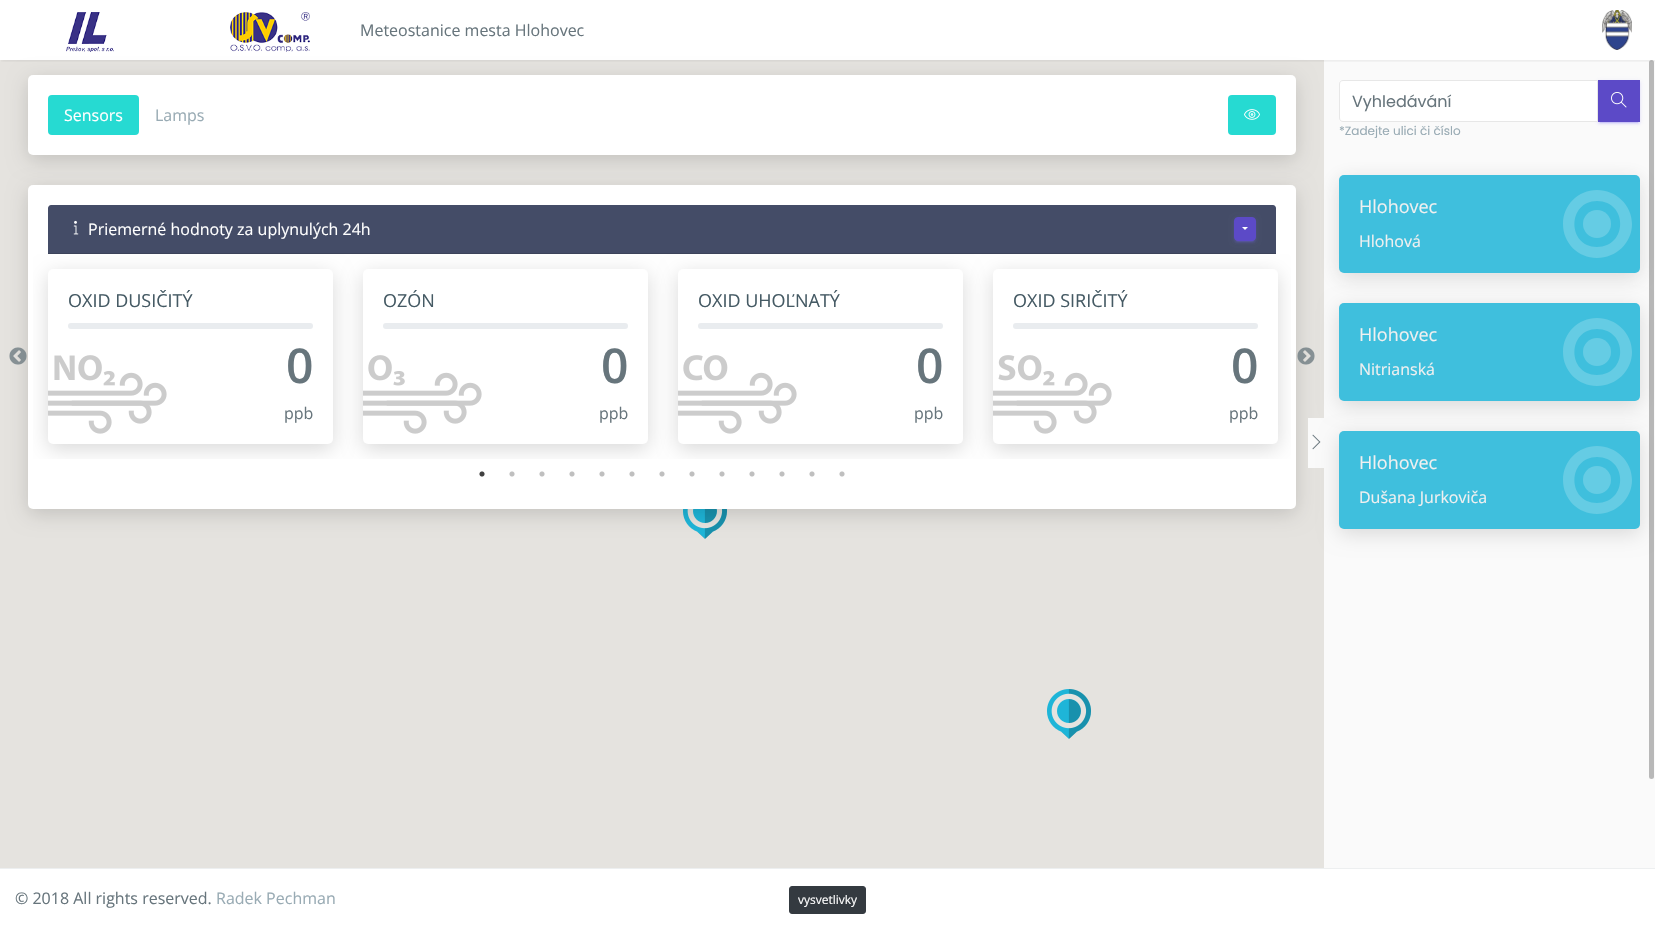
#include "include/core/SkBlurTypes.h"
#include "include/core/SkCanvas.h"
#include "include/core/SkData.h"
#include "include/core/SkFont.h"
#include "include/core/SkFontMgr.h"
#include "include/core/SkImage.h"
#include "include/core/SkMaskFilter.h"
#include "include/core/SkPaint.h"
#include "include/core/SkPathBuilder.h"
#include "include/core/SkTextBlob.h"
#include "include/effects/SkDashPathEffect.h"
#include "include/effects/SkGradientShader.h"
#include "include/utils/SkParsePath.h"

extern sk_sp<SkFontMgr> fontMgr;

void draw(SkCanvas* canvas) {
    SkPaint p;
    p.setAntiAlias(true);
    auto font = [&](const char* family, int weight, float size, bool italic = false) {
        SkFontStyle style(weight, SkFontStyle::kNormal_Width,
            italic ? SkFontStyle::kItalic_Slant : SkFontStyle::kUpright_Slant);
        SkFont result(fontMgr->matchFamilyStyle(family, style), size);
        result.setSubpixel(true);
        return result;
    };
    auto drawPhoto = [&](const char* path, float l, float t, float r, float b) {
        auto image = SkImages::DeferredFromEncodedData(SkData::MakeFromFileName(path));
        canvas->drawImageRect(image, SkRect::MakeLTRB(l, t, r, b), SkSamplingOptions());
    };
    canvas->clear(0xFFFFFFFF);
    p.setColor(0xFFFAFAFA);
    canvas->drawRect(SkRect::MakeLTRB(1324, 60, 1655, 868), p);
    p.setColor(0xFFE5E3DF);
    canvas->drawRect(SkRect::MakeLTRB(0, 60, 1324, 868), p);
    canvas->save();
    canvas->clipRect(SkRect::MakeLTRB(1, 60, 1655, 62));
    p.setColor(0x1A000000);
    p.setMaskFilter(SkMaskFilter::MakeBlur(kNormal_SkBlurStyle, 2.5f));
    canvas->drawRect(SkRect::MakeLTRB(1, 0, 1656, 60), p);
    p.setMaskFilter(nullptr);
    canvas->restore();
    p.setColor(0x26000000);
    p.setMaskFilter(SkMaskFilter::MakeBlur(kNormal_SkBlurStyle, 10));
    canvas->drawRoundRect(SkRect::MakeLTRB(28, 80, 1296, 160), 5, 5, p);
    p.setMaskFilter(nullptr);
    drawPhoto("media/1.png", 66, 12, 114, 52);
    drawPhoto("media/2.png", 230, 12, 310, 52);
    auto font1 = font("Open Sans", 400, 16);
    p.setColor(0xFF67757C);
    canvas->drawString("Meteostanice mesta Hlohovec", 360, 36, font1, p);
    drawPhoto("media/3.png", 1602, 10, 1632, 50);
    drawPhoto("media/4.png", 683, 509, 727, 539);
    drawPhoto("media/5.png", 1047, 689, 1091, 739);
    p.setColor(0xFFFFFFFF);
    canvas->drawRoundRect(SkRect::MakeLTRB(28, 75, 1296, 155), 5, 5, p);
    p.setColor(0xFF26DAD2);
    canvas->drawRoundRect(SkRect::MakeLTRB(48, 95, 139, 135), 4, 4, p);
    p.setColor(0xFFFFFFFF);
    canvas->drawString("Sensors", 64, 121, font1, p);
    p.setColor(0xFF99ABB4);
    canvas->drawString("Lamps", 155, 121, font1, p);
    p.setColor(0xFF26DAD2);
    canvas->drawRoundRect(SkRect::MakeLTRB(1228, 95, 1276, 135), 4, 4, p);
    drawPhoto("media/6.png", 1244, 109, 1260, 120);
    p.setColor(0x26000000);
    p.setMaskFilter(SkMaskFilter::MakeBlur(kNormal_SkBlurStyle, 10));
    canvas->drawRoundRect(SkRect::MakeLTRB(28, 190, 1296, 514), 5, 5, p);
    p.setMaskFilter(nullptr);
    p.setColor(0xFFFFFFFF);
    canvas->drawRoundRect(SkRect::MakeLTRB(28, 185, 1296, 509), 5, 5, p);
    p.setColor(0xFF444C67);
    canvas->drawPath(SkPathBuilder().moveTo(51, 205).lineTo(1273, 205).cubicTo(1274.5f, 205, 1276, 206.5f, 1276, 208).lineTo(1276, 254).lineTo(48, 254).lineTo(48, 208).cubicTo(48, 206.5f, 49.5f, 205, 51, 205).close().detach(), p);
    p.setColor(0xFF3C435A);
    canvas->drawRect(SkRect::MakeLTRB(48, 253, 1276, 254), p);
    drawPhoto("media/7.png", 73, 220, 79, 235);
    p.setColor(0xFFFFFFFF);
    canvas->drawString("Priemerné hodnoty za uplynulých 24h", 88, 235, font1, p);
    p.setColor(0x1F7460EE);
    p.setMaskFilter(SkMaskFilter::MakeBlur(kNormal_SkBlurStyle, 2.5f));
    canvas->drawRoundRect(SkRect::MakeLTRB(1234, 218, 1256, 242), 4, 4, p);
    p.setMaskFilter(nullptr);
    p.setColor(0x337460EE);
    p.setMaskFilter(SkMaskFilter::MakeBlur(kNormal_SkBlurStyle, 0.5f));
    canvas->drawRoundRect(SkRect::MakeLTRB(1236, 222, 1254, 242), 2, 2, p);
    p.setMaskFilter(nullptr);
    p.setColor(0x247460EE);
    p.setMaskFilter(SkMaskFilter::MakeBlur(kNormal_SkBlurStyle, 1));
    canvas->drawRoundRect(SkRect::MakeLTRB(1234, 219, 1256, 243), 4, 4, p);
    p.setMaskFilter(nullptr);
    p.setColor(0xFF5C4AC7);
    canvas->drawRoundRect(SkRect::MakeLTRB(1234.5f, 217.5f, 1255.5f, 240.5f), 3.5f, 3.5f, p);
    p.setStyle(SkPaint::kStroke_Style);
    p.setStrokeWidth(1);
    canvas->drawRoundRect(SkRect::MakeLTRB(1234.5f, 217.5f, 1255.5f, 240.5f), 3.5f, 3.5f, p);
    p.setStyle(SkPaint::kFill_Style);
    p.setColor(0xFFFFFFFF);
    canvas->drawPath(SkPathBuilder().moveTo(1242, 227).lineTo(1248, 227).lineTo(1245, 230).close().detach(), p);
    drawPhoto("media/8.png", 9, 347, 27, 365);
    canvas->save();
    canvas->clipRect(SkRect::MakeLTRB(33, 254, 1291, 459));
    p.setColor(0x26000000);
    p.setMaskFilter(SkMaskFilter::MakeBlur(kNormal_SkBlurStyle, 10));
    canvas->drawRoundRect(SkRect::MakeLTRB(48, 274, 333, 449), 5, 5, p);
    p.setMaskFilter(nullptr);
    canvas->restore();
    p.setColor(0xFFFFFFFF);
    canvas->drawRoundRect(SkRect::MakeLTRB(48, 269, 333, 444), 5, 5, p);
    drawPhoto("media/9.png", 48, 355, 167, 434);
    auto font2 = font("Open Sans", 400, 18);
    p.setColor(0xFF455A64);
    canvas->drawString("OXID DUSIČITÝ", 68, 307, font2, p);
    p.setColor(0xFFE9ECEF);
    canvas->drawRoundRect(SkRect::MakeLTRB(68, 323, 313, 329), 3, 3, p);
    auto font3 = font("Open Sans", 600, 48);
    p.setColor(0xFF67757C);
    canvas->drawString("0", 286, 383, font3, p);
    canvas->drawString("ppb", 284, 419, font1, p);
    canvas->save();
    canvas->clipRect(SkRect::MakeLTRB(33, 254, 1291, 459));
    p.setColor(0x26000000);
    p.setMaskFilter(SkMaskFilter::MakeBlur(kNormal_SkBlurStyle, 10));
    canvas->drawRoundRect(SkRect::MakeLTRB(363, 274, 648, 449), 5, 5, p);
    p.setMaskFilter(nullptr);
    canvas->restore();
    p.setColor(0xFFFFFFFF);
    canvas->drawRoundRect(SkRect::MakeLTRB(363, 269, 648, 444), 5, 5, p);
    drawPhoto("media/10.png", 363, 355, 482, 434);
    p.setColor(0xFF455A64);
    canvas->drawString("OZÓN", 383, 307, font2, p);
    p.setColor(0xFFE9ECEF);
    canvas->drawRoundRect(SkRect::MakeLTRB(383, 323, 628, 329), 3, 3, p);
    p.setColor(0xFF67757C);
    canvas->drawString("0", 601, 383, font3, p);
    canvas->drawString("ppb", 599, 419, font1, p);
    canvas->save();
    canvas->clipRect(SkRect::MakeLTRB(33, 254, 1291, 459));
    p.setColor(0x26000000);
    p.setMaskFilter(SkMaskFilter::MakeBlur(kNormal_SkBlurStyle, 10));
    canvas->drawRoundRect(SkRect::MakeLTRB(678, 274, 963, 449), 5, 5, p);
    p.setMaskFilter(nullptr);
    canvas->restore();
    p.setColor(0xFFFFFFFF);
    canvas->drawRoundRect(SkRect::MakeLTRB(678, 269, 963, 444), 5, 5, p);
    drawPhoto("media/11.png", 678, 355, 797, 434);
    p.setColor(0xFF455A64);
    canvas->drawString("OXID UHOĽNATÝ", 698, 307, font2, p);
    p.setColor(0xFFE9ECEF);
    canvas->drawRoundRect(SkRect::MakeLTRB(698, 323, 943, 329), 3, 3, p);
    p.setColor(0xFF67757C);
    canvas->drawString("0", 916, 383, font3, p);
    canvas->drawString("ppb", 914, 419, font1, p);
    canvas->save();
    canvas->clipRect(SkRect::MakeLTRB(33, 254, 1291, 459));
    p.setColor(0x26000000);
    p.setMaskFilter(SkMaskFilter::MakeBlur(kNormal_SkBlurStyle, 10));
    canvas->drawRoundRect(SkRect::MakeLTRB(993, 274, 1278, 449), 5, 5, p);
    p.setMaskFilter(nullptr);
    canvas->restore();
    p.setColor(0xFFFFFFFF);
    canvas->drawRoundRect(SkRect::MakeLTRB(993, 269, 1278, 444), 5, 5, p);
    drawPhoto("media/12.png", 993, 355, 1112, 434);
    p.setColor(0xFF455A64);
    canvas->drawString("OXID SIRIČITÝ", 1013, 307, font2, p);
    p.setColor(0xFFE9ECEF);
    canvas->drawRoundRect(SkRect::MakeLTRB(1013, 323, 1258, 329), 3, 3, p);
    p.setColor(0xFF67757C);
    canvas->drawString("0", 1231, 383, font3, p);
    canvas->drawString("ppb", 1229, 419, font1, p);
    drawPhoto("media/13.png", 1297, 347, 1315, 365);
    drawPhoto("media/14.png", 479, 471, 485, 477);
    drawPhoto("media/15.png", 509, 471, 515, 477);
    drawPhoto("media/15.png", 539, 471, 545, 477);
    drawPhoto("media/15.png", 569, 471, 575, 477);
    drawPhoto("media/15.png", 599, 471, 605, 477);
    drawPhoto("media/15.png", 629, 471, 635, 477);
    drawPhoto("media/15.png", 659, 471, 665, 477);
    drawPhoto("media/15.png", 689, 471, 695, 477);
    drawPhoto("media/15.png", 719, 471, 725, 477);
    drawPhoto("media/15.png", 749, 471, 755, 477);
    drawPhoto("media/15.png", 779, 471, 785, 477);
    drawPhoto("media/15.png", 809, 471, 815, 477);
    drawPhoto("media/15.png", 839, 471, 845, 477);
    p.setColor(0x1F7460EE);
    p.setMaskFilter(SkMaskFilter::MakeBlur(kNormal_SkBlurStyle, 2.5f));
    canvas->drawRect(SkRect::MakeLTRB(1598, 81, 1640, 123), p);
    p.setMaskFilter(nullptr);
    p.setColor(0x337460EE);
    p.setMaskFilter(SkMaskFilter::MakeBlur(kNormal_SkBlurStyle, 0.5f));
    canvas->drawRect(SkRect::MakeLTRB(1600, 85, 1638, 123), p);
    p.setMaskFilter(nullptr);
    p.setColor(0x247460EE);
    p.setMaskFilter(SkMaskFilter::MakeBlur(kNormal_SkBlurStyle, 1));
    canvas->drawRect(SkRect::MakeLTRB(1598, 82, 1640, 124), p);
    p.setMaskFilter(nullptr);
    p.setColor(0xFFFFFFFF);
    canvas->drawPath(SkPathBuilder().moveTo(1343, 80.5f).lineTo(1597.5f, 80.5f).lineTo(1597.5f, 121.5f).lineTo(1343, 121.5f).cubicTo(1341, 121.5f, 1339.5f, 120, 1339.5f, 118).lineTo(1339.5f, 84).cubicTo(1339.5f, 82, 1341, 80.5f, 1343, 80.5f).close().detach(), p);
    p.setStyle(SkPaint::kStroke_Style);
    p.setColor(0xFFE7E7E7);
    canvas->drawPath(SkPathBuilder().moveTo(1343, 80.5f).lineTo(1597.5f, 80.5f).lineTo(1597.5f, 121.5f).lineTo(1343, 121.5f).cubicTo(1341, 121.5f, 1339.5f, 120, 1339.5f, 118).lineTo(1339.5f, 84).cubicTo(1339.5f, 82, 1341, 80.5f, 1343, 80.5f).close().detach(), p);
    auto font4 = font("Poppins", 400, 16);
    p.setStyle(SkPaint::kFill_Style);
    p.setColor(0xFF67757C);
    canvas->drawString("Vyhledávání", 1352, 107, font4, p);
    p.setColor(0xFF5C4AC7);
    canvas->drawRect(SkRect::MakeLTRB(1598, 80, 1640, 122), p);
    drawPhoto("media/16.png", 1611, 92, 1627, 108);
    auto font5 = font("Poppins", 400, 12);
    p.setColor(0xFF99ABB4);
    canvas->drawString("*Zadejte ulici či číslo", 1339, 135, font5, p);
    p.setColor(0x26252525);
    p.setMaskFilter(SkMaskFilter::MakeBlur(kNormal_SkBlurStyle, 10));
    canvas->drawRoundRect(SkRect::MakeLTRB(1339, 180, 1640, 278), 5, 5, p);
    p.setMaskFilter(nullptr);
    p.setColor(0xFF3FBFDD);
    canvas->drawRoundRect(SkRect::MakeLTRB(1339, 175, 1640, 273), 5, 5, p);
    p.setColor(0xFF65CCE4);
    canvas->drawPath(SkPathBuilder().moveTo(1597, 190).cubicTo(1578, 190, 1563, 205, 1563, 224).cubicTo(1563, 243, 1578, 258, 1597, 258).cubicTo(1616, 258, 1632, 243, 1632, 224).cubicTo(1632, 205, 1616, 190, 1597, 190).close().moveTo(1597, 247).cubicTo(1567, 247, 1567, 201, 1597, 201).cubicTo(1628, 201, 1628, 247, 1597, 247).close().detach(), p);
    canvas->drawCircle(1597, 224, 14, p);
    p.setColor(0xFFF0F0F0);
    canvas->drawString("Hlohovec", 1359, 213, font2, p);
    canvas->drawString("Hlohová", 1359, 247, font1, p);
    p.setColor(0xFFFAFAFA);
    canvas->drawRect(SkRect::MakeLTRB(1308, 418, 1324, 468), p);
    drawPhoto("media/17.png", 1312, 434, 1321, 450);
    p.setColor(0x21000000);
    p.setMaskFilter(SkMaskFilter::MakeBlur(kNormal_SkBlurStyle, 10));
    canvas->drawRoundRect(SkRect::MakeLTRB(1339, 308, 1640, 406), 5, 5, p);
    p.setMaskFilter(nullptr);
    p.setColor(0xFF3FBFDD);
    canvas->drawRoundRect(SkRect::MakeLTRB(1339, 303, 1640, 401), 5, 5, p);
    p.setColor(0xFF65CCE4);
    canvas->drawPath(SkPathBuilder().moveTo(1597, 318).cubicTo(1578, 318, 1563, 333, 1563, 352).cubicTo(1563, 371, 1578, 386, 1597, 386).cubicTo(1616, 386, 1632, 371, 1632, 352).cubicTo(1632, 333, 1616, 318, 1597, 318).close().moveTo(1597, 375).cubicTo(1567, 375, 1567, 329, 1597, 329).cubicTo(1628, 329, 1628, 375, 1597, 375).close().detach(), p);
    canvas->drawCircle(1597, 352, 14, p);
    p.setColor(0xFFF0F0F0);
    canvas->drawString("Hlohovec", 1359, 341, font2, p);
    canvas->drawString("Nitrianská", 1359, 375, font1, p);
    p.setColor(0x21000000);
    p.setMaskFilter(SkMaskFilter::MakeBlur(kNormal_SkBlurStyle, 10));
    canvas->drawRoundRect(SkRect::MakeLTRB(1339, 436, 1640, 534), 5, 5, p);
    p.setMaskFilter(nullptr);
    p.setColor(0xFF3FBFDD);
    canvas->drawRoundRect(SkRect::MakeLTRB(1339, 431, 1640, 529), 5, 5, p);
    p.setColor(0xFF65CCE4);
    canvas->drawPath(SkPathBuilder().moveTo(1597, 446).cubicTo(1578, 446, 1563, 461, 1563, 480).cubicTo(1563, 499, 1578, 514, 1597, 514).cubicTo(1616, 514, 1632, 499, 1632, 480).cubicTo(1632, 461, 1616, 446, 1597, 446).close().moveTo(1597, 503).cubicTo(1567, 503, 1567, 457, 1597, 457).cubicTo(1628, 457, 1628, 503, 1597, 503).close().detach(), p);
    canvas->drawCircle(1597, 480, 14, p);
    p.setColor(0xFFF0F0F0);
    canvas->drawString("Hlohovec", 1359, 469, font2, p);
    canvas->drawString("Dušana Jurkoviča", 1359, 503, font1, p);
    p.setColor(0x66565656);
    canvas->drawRoundRect(SkRect::MakeLTRB(1649, 60, 1654, 779), 2.5f, 2.5f, p);
    p.setColor(0xFFEDEFF0);
    canvas->drawRect(SkRect::MakeLTRB(0, 868, 1655, 869), p);
    p.setColor(0xFF67757C);
    canvas->drawString("© 2018 All rights reserved.", 15, 904, font1, p);
    p.setColor(0xFF99ABB4);
    canvas->drawString("Radek Pechman", 216, 904, font1, p);
    p.setColor(0xFF343A40);
    canvas->drawRoundRect(SkRect::MakeLTRB(789.5f, 886.5f, 865.5f, 913.5f), 2.5f, 2.5f, p);
    p.setStyle(SkPaint::kStroke_Style);
    canvas->drawRoundRect(SkRect::MakeLTRB(789.5f, 886.5f, 865.5f, 913.5f), 2.5f, 2.5f, p);
    auto font6 = font("Open Sans", 400, 12);
    p.setStyle(SkPaint::kFill_Style);
    p.setColor(0xFFFFFFFF);
    canvas->drawString("vysvetlivky", 798, 904, font6, p);
}
